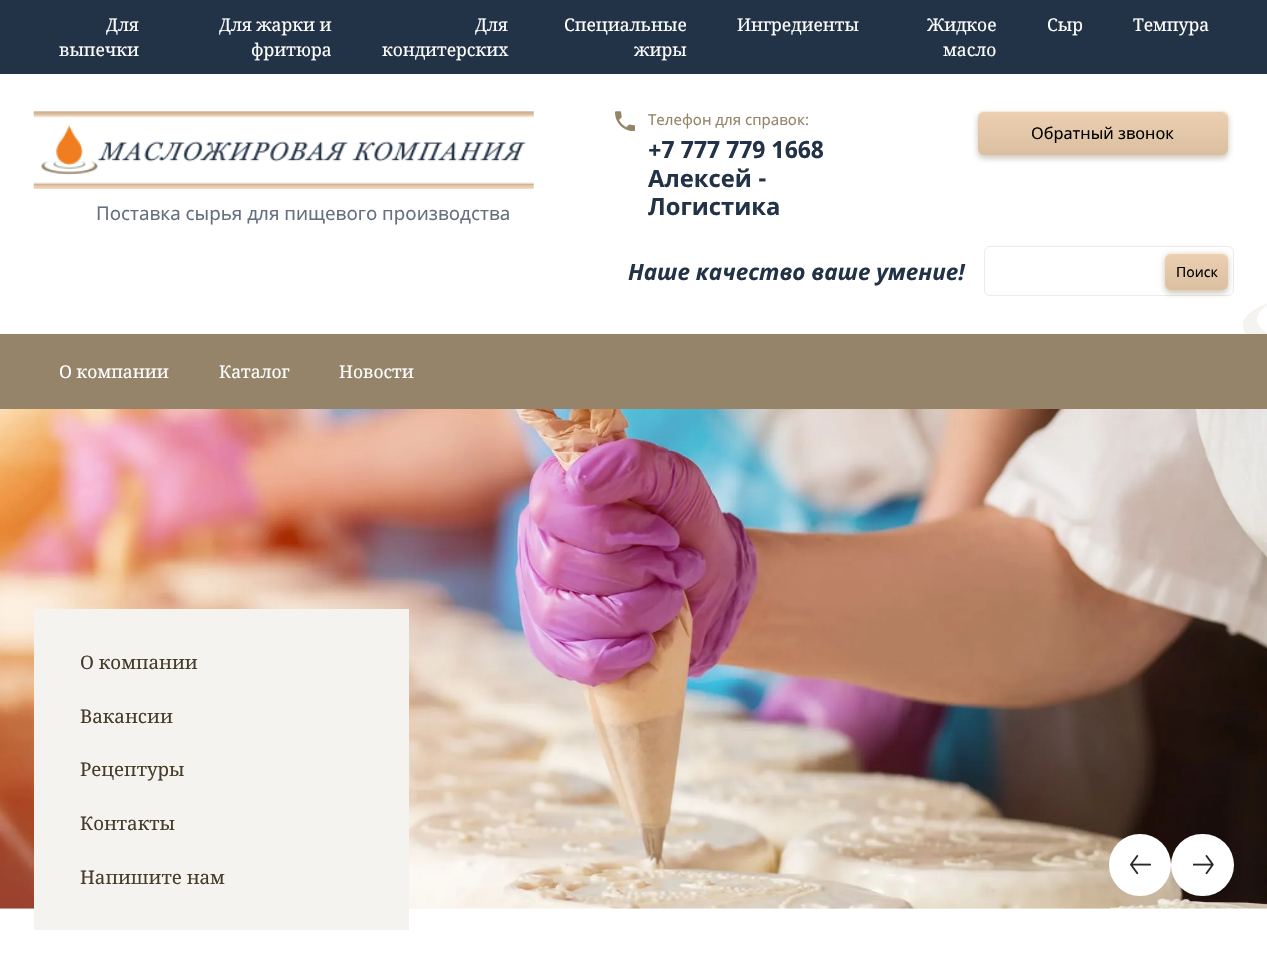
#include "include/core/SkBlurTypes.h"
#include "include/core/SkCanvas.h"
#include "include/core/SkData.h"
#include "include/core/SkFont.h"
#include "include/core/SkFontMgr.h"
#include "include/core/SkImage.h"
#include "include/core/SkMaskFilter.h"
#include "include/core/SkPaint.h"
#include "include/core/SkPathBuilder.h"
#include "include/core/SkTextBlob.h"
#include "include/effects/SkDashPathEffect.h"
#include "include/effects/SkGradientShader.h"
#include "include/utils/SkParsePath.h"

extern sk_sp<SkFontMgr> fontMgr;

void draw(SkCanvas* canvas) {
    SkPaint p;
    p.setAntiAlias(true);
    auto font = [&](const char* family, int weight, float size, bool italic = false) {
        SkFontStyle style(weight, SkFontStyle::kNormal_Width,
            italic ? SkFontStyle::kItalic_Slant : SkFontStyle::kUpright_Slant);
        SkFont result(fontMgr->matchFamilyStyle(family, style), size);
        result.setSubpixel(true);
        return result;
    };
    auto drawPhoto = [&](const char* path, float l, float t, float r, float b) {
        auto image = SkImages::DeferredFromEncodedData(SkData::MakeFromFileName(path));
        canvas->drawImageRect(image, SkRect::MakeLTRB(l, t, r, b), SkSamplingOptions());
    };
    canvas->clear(0xFFFFFFFF);
    drawPhoto("media/1.png", 1243, 303, 1267, 334);
    p.setColor(0xFF233347);
    canvas->drawRect(SkRect::MakeLTRB(0, 0, 1267, 74), p);
    auto font1 = font("Noto Serif", 400, 17.5f);
    p.setColor(0xFFFFFFFF);
    {
        const struct { const char* s; float x, y; } items[] = {
            {"Для", 106, 31},
            {"выпечки", 59, 56},
            {"Для жарки и", 219, 31},
            {"фритюра", 251, 56},
            {"Для", 475, 31},
            {"кондитерских", 382, 56},
            {"Специальные", 564, 31},
            {"жиры", 634, 56},
            {"Ингредиенты", 737, 31},
            {"Жидкое", 927, 31},
            {"масло", 943, 56},
            {"Сыр", 1047, 31},
            {"Темпура", 1133, 31},
        };
        for (auto [s, x, y] : items) {
            canvas->drawString(s, x, y, font1, p);
        }
    }
    drawPhoto("media/2.png", 33, 111, 534, 189);
    auto font2 = font("Noto Sans", 400, 18.75f);
    p.setColor(0xFF65707E);
    canvas->drawString("Поставка сырья для пищевого производства", 96, 220, font2, p);
    drawPhoto("media/3.png", 615, 111, 635, 131);
    auto font3 = font("Noto Sans", 400, 15);
    p.setColor(0xFF958469);
    canvas->drawString("Телефон для справок:", 648, 125, font3, p);
    auto font4 = font("Noto Sans", 700, 23.75f);
    p.setColor(0xFF233347);
    {
        const struct { const char* s; float x, y; } items[] = {
            {"+7 777 779 1668", 648, 158},
            {"Алексей -", 648, 187},
            {"Логистика", 648, 215},
        };
        for (auto [s, x, y] : items) {
            canvas->drawString(s, x, y, font4, p);
        }
    }
    p.setColor(0x80958469);
    p.setMaskFilter(SkMaskFilter::MakeBlur(kNormal_SkBlurStyle, 3));
    canvas->drawRoundRect(SkRect::MakeLTRB(978, 114, 1228, 158), 6, 6, p);
    p.setMaskFilter(nullptr);
    p.setColor(0xFFEDD0B1);
    canvas->drawRoundRect(SkRect::MakeLTRB(978, 111, 1228, 155), 6, 6, p);
    {
        const SkColor colors[] = {0x38EDD0B1, 0x38958469};
        const float stops[] = {0, 1};
        const SkPoint ends[] = {{1103, 111}, {1103, 155}};
        p.setShader(SkGradientShader::MakeLinear(ends, colors, stops, 2, SkTileMode::kClamp));
        p.setAlpha(255);
    }
    canvas->drawRoundRect(SkRect::MakeLTRB(978, 111, 1228, 155), 6, 6, p);
    p.setShader(nullptr);
    p.setColor(0x99FFFFFF);
    canvas->drawPath(SkPathBuilder().moveTo(984, 112).lineTo(1221, 112).cubicTo(1225, 112, 1228, 115, 1228, 119).cubicTo(1228, 116, 1227, 112, 1223, 111).lineTo(984, 111).cubicTo(979, 111, 978, 115, 978, 119).cubicTo(978, 115, 980, 112, 984, 112).close().detach(), p);
    auto font5 = font("Noto Sans", 400, 16.25f);
    p.setColor(0xFF000000);
    canvas->drawString("Обратный звонок", 1031, 139, font5, p);
    auto font6 = font("Noto Sans", 700, 22.5f, true);
    p.setColor(0xFF233347);
    canvas->drawString("Наше качество ваше умение!", 628, 280, font6, p);
    p.setStyle(SkPaint::kStroke_Style);
    p.setStrokeWidth(1);
    p.setColor(0xFFE9EBED);
    canvas->drawRoundRect(SkRect::MakeLTRB(984.5f, 246.5f, 1233.5f, 295.5f), 5.5f, 5.5f, p);
    p.setStyle(SkPaint::kFill_Style);
    p.setColor(0x80958469);
    p.setMaskFilter(SkMaskFilter::MakeBlur(kNormal_SkBlurStyle, 3));
    canvas->drawRoundRect(SkRect::MakeLTRB(1165, 255, 1228, 293), 6, 6, p);
    p.setMaskFilter(nullptr);
    p.setColor(0xFFEDD0B1);
    canvas->drawRoundRect(SkRect::MakeLTRB(1165, 253, 1228, 290), 6, 6, p);
    {
        const SkColor colors[] = {0x38EDD0B1, 0x38958469};
        const float stops[] = {0, 1};
        const SkPoint ends[] = {{1196, 253}, {1196, 290}};
        p.setShader(SkGradientShader::MakeLinear(ends, colors, stops, 2, SkTileMode::kClamp));
        p.setAlpha(255);
    }
    canvas->drawRoundRect(SkRect::MakeLTRB(1165, 253, 1228, 290), 6, 6, p);
    p.setShader(nullptr);
    p.setColor(0x99FFFFFF);
    canvas->drawPath(SkPathBuilder().moveTo(1171, 254).lineTo(1221, 254).cubicTo(1225, 254, 1228, 257, 1228, 260).cubicTo(1228, 251, 1220, 253, 1214, 253).lineTo(1180, 253).cubicTo(1173, 253, 1165, 251, 1165, 260).cubicTo(1165, 257, 1168, 254, 1171, 254).close().detach(), p);
    auto font7 = font("Noto Sans", 400, 14);
    p.setColor(0xFF000000);
    canvas->drawString("Поиск", 1176, 277, font7, p);
    p.setColor(0xFF958469);
    canvas->drawRect(SkRect::MakeLTRB(0, 334, 1267, 409), p);
    p.setColor(0xFFFFFFFF);
    {
        const struct { const char* s; float x, y; } items[] = {
            {"О компании", 59, 378},
            {"Каталог", 219, 378},
            {"Новости", 339, 378},
        };
        for (auto [s, x, y] : items) {
            canvas->drawString(s, x, y, font1, p);
        }
    }
    drawPhoto("media/4.png", 0, 409, 1267, 909);
    canvas->drawCircle(1140, 865, 31, p);
    drawPhoto("media/5.png", 1130, 855, 1151, 875);
    canvas->drawRoundRect(SkRect::MakeLTRB(1171, 834, 1234, 896), 31, 31, p);
    drawPhoto("media/6.png", 1193, 855, 1214, 875);
    p.setColor(0xFFF5F3F0);
    canvas->drawRect(SkRect::MakeLTRB(34, 609, 409, 930), p);
    auto font8 = font("Noto Serif", 400, 18.75f);
    p.setColor(0xFF473C2B);
    {
        const struct { const char* s; float x, y; } items[] = {
            {"О компании", 80, 669},
            {"Вакансии", 80, 723},
            {"Рецептуры", 80, 776},
            {"Контакты", 80, 830},
            {"Напишите нам", 80, 884},
        };
        for (auto [s, x, y] : items) {
            canvas->drawString(s, x, y, font8, p);
        }
    }
}
